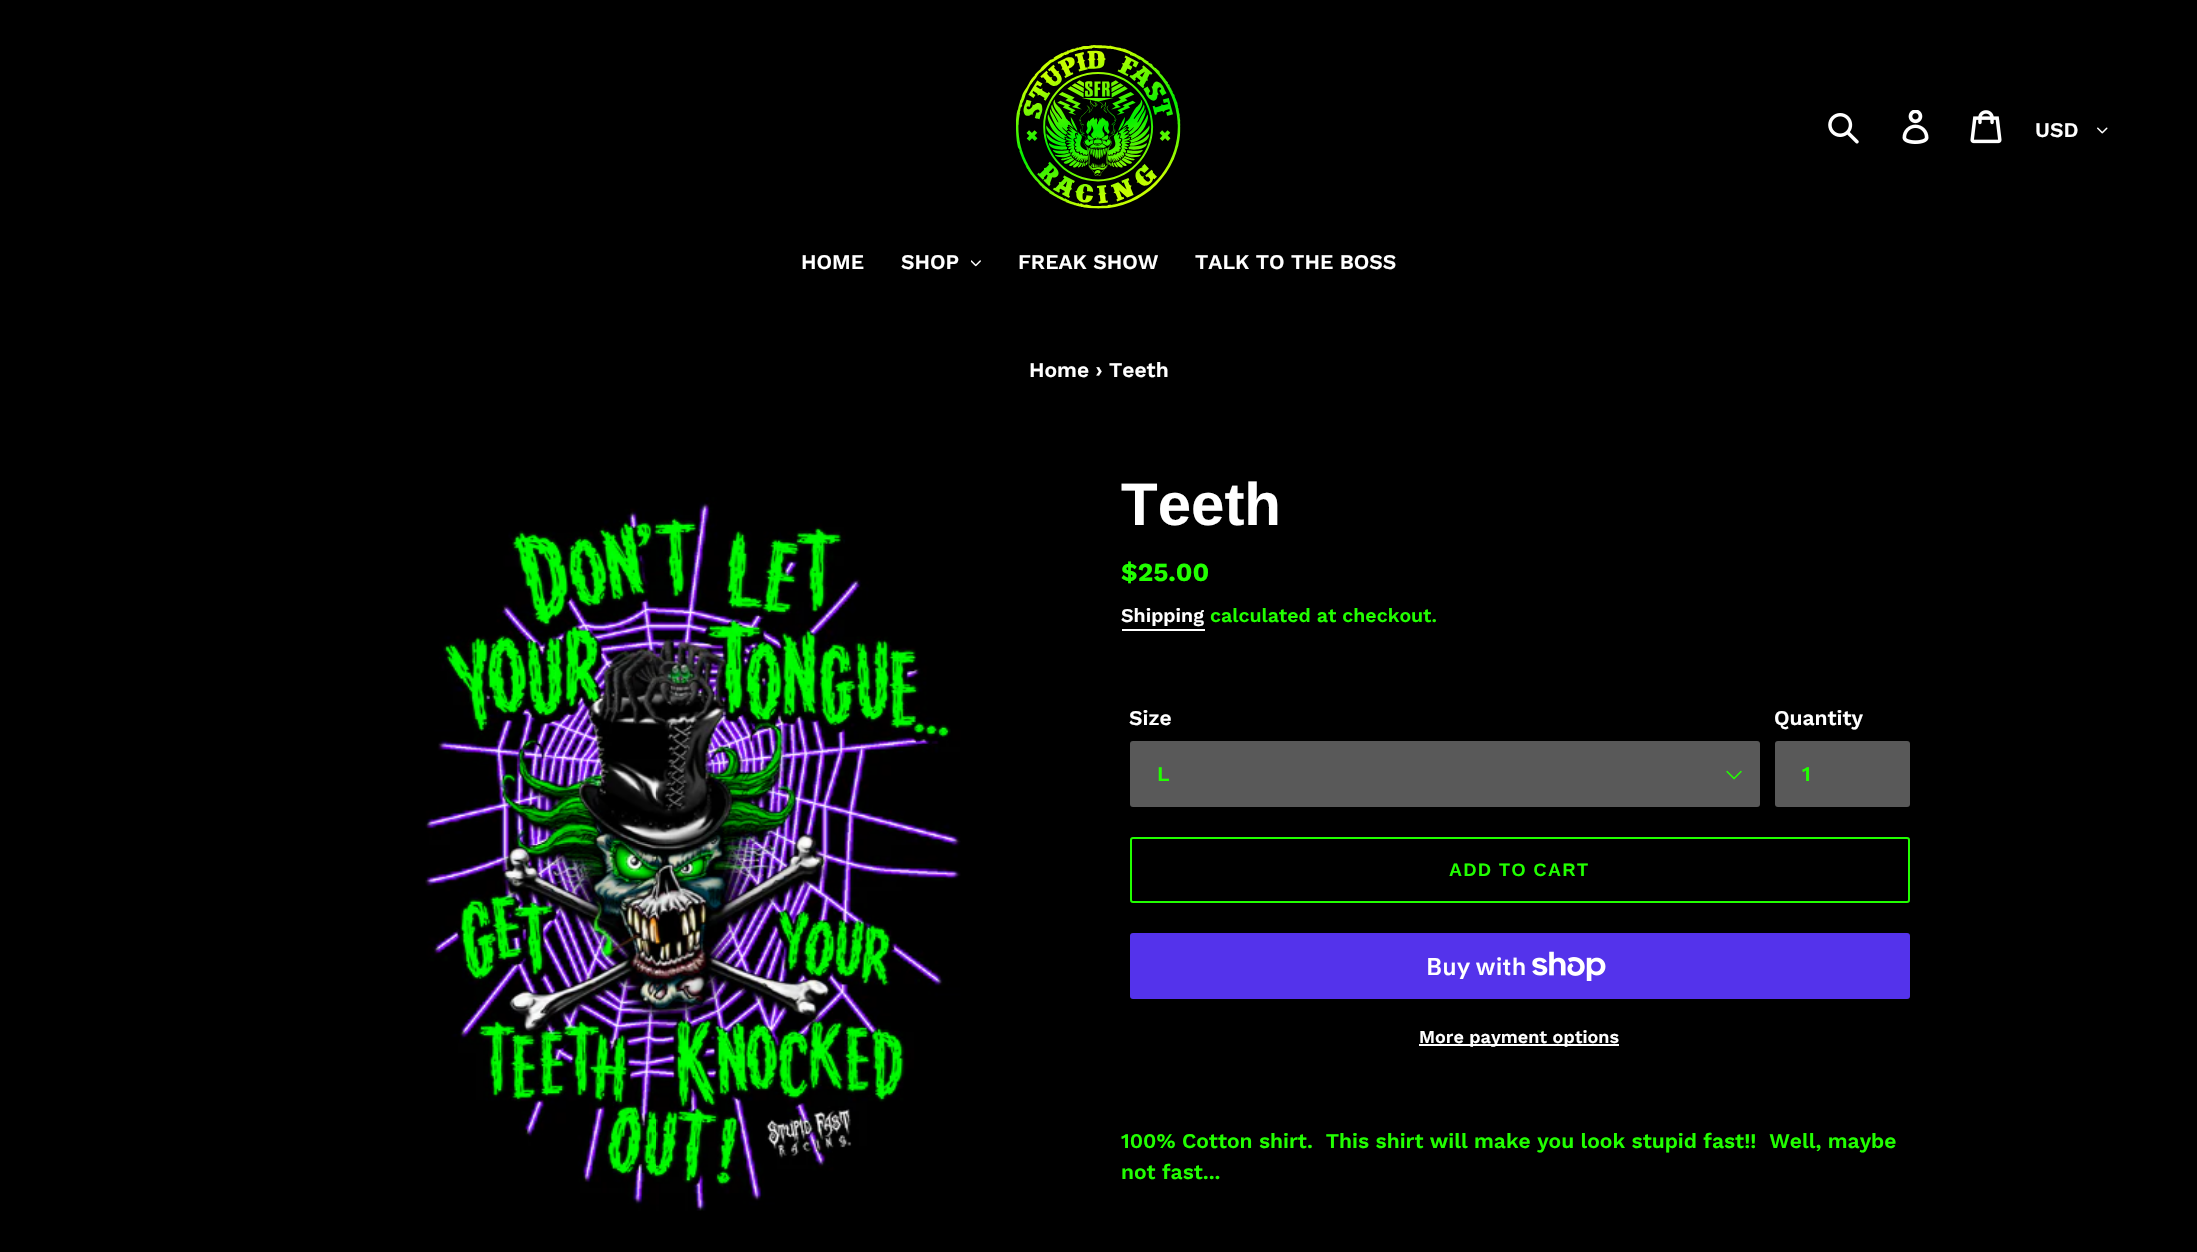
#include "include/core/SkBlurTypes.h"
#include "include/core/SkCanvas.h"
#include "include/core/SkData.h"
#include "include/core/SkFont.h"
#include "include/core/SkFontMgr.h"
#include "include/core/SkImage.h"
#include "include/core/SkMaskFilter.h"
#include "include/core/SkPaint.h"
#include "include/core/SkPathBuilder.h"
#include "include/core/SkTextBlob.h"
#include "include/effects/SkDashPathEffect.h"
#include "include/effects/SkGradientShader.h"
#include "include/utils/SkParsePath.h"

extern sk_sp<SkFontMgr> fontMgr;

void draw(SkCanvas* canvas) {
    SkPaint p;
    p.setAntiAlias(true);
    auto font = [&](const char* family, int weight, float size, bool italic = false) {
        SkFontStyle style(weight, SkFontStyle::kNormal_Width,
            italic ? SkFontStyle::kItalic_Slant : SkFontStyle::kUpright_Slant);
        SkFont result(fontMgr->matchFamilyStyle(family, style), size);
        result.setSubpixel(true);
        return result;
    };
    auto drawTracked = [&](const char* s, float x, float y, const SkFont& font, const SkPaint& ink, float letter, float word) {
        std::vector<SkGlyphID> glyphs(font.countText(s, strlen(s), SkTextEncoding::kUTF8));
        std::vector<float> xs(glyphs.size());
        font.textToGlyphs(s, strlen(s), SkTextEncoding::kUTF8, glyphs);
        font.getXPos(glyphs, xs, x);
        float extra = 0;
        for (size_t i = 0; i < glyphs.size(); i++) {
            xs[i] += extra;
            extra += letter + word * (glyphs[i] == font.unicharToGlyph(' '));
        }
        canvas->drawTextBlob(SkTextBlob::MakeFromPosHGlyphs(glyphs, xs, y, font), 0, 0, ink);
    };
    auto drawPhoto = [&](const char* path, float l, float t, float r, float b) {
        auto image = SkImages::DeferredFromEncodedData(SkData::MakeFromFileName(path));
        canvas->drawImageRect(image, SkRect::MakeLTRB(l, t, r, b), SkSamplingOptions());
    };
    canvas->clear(0xFF000000);
    drawPhoto("media/1.png", 1016, 45, 1181, 209);
    drawPhoto("media/2.png", 1828, 113, 1859, 144);
    drawPhoto("media/3.png", 1902, 110, 1929, 144);
    drawPhoto("media/4.png", 1970, 110, 2002, 144);
    auto font1 = font("Work Sans", 600, 21);
    p.setColor(0xFFFFFFFF);
    canvas->drawString("USD", 2035, 137, font1, p);
    drawPhoto("media/5.png", 2097, 127, 2108, 134);
    canvas->drawString("HOME", 801, 269, font1, p);
    canvas->drawString("SHOP", 901, 269, font1, p);
    drawPhoto("media/6.png", 971, 260, 981, 267);
    {
        const struct { const char* s; float x, y; } items[] = {
            {"FREAK SHOW", 1018, 269},
            {"TALK TO THE BOSS", 1195, 269},
            {"Home › Teeth", 1029, 377},
        };
        for (auto [s, x, y] : items) {
            canvas->drawString(s, x, y, font1, p);
        }
    }
    drawPhoto("media/7.png", 425, 497, 961, 1211);
    auto font2 = font("Liberation Sans", 700, 60);
    canvas->drawString("Teeth", 1121, 525, font2, p);
    auto font3 = font("Work Sans", 700, 26);
    p.setColor(0xFF21FF00);
    canvas->drawString("$25.00", 1121, 581, font3, p);
    auto font4 = font("Work Sans", 600, 19.5f);
    p.setColor(0xFFFFFFFF);
    canvas->drawString("Shipping", 1121, 622, font4, p);
    canvas->drawRect(SkRect::MakeLTRB(1122, 629, 1205, 631), p);
    p.setColor(0xFF21FF00);
    canvas->drawString("calculated at checkout.", 1210, 622, font4, p);
    p.setColor(0xFFFFFFFF);
    canvas->drawString("Size", 1129, 725, font1, p);
    p.setColor(0xFF595959);
    canvas->drawRoundRect(SkRect::MakeLTRB(1130, 741, 1760, 807), 3, 3, p);
    drawPhoto("media/8.png", 1726, 770, 1742, 780);
    p.setColor(0xFF21FF00);
    canvas->drawString("L", 1157, 781, font1, p);
    p.setColor(0xFFFFFFFF);
    canvas->drawString("Quantity", 1774, 725, font1, p);
    p.setColor(0xFF595959);
    canvas->drawRoundRect(SkRect::MakeLTRB(1775, 741, 1910, 807), 3, 3, p);
    p.setColor(0xFF21FF00);
    canvas->drawString("1", 1802, 781, font1, p);
    p.setStyle(SkPaint::kStroke_Style);
    p.setStrokeWidth(2);
    canvas->drawRoundRect(SkRect::MakeLTRB(1131, 838, 1909, 902), 2, 2, p);
    auto font5 = font("Liberation Sans", 700, 18);
    p.setStyle(SkPaint::kFill_Style);
    drawTracked("ADD TO CART", 1449, 876, font5, p, 1.5f, 0);
    p.setColor(0xFF5433EB);
    canvas->drawRoundRect(SkRect::MakeLTRB(1130, 933, 1910, 999), 3, 3, p);
    auto font6 = font("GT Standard", 600, 24);
    p.setColor(0xFFFFFFFF);
    canvas->drawString("Buy with", 1426, 975, font6, p);
    drawPhoto("media/9.png", 1532, 951, 1606, 981);
    canvas->drawRect(SkRect::MakeLTRB(1419, 1044, 1619, 1046), p);
    auto font7 = font("Work Sans", 600, 18);
    canvas->drawString("More payment options", 1419, 1043, font7, p);
    p.setColor(0xFF21FF00);
    canvas->drawString("100% Cotton shirt.  This shirt will make you look stupid fast!!  Well, maybe", 1121, 1148, font1, p);
    canvas->drawString("not fast...", 1121, 1179, font1, p);
}
